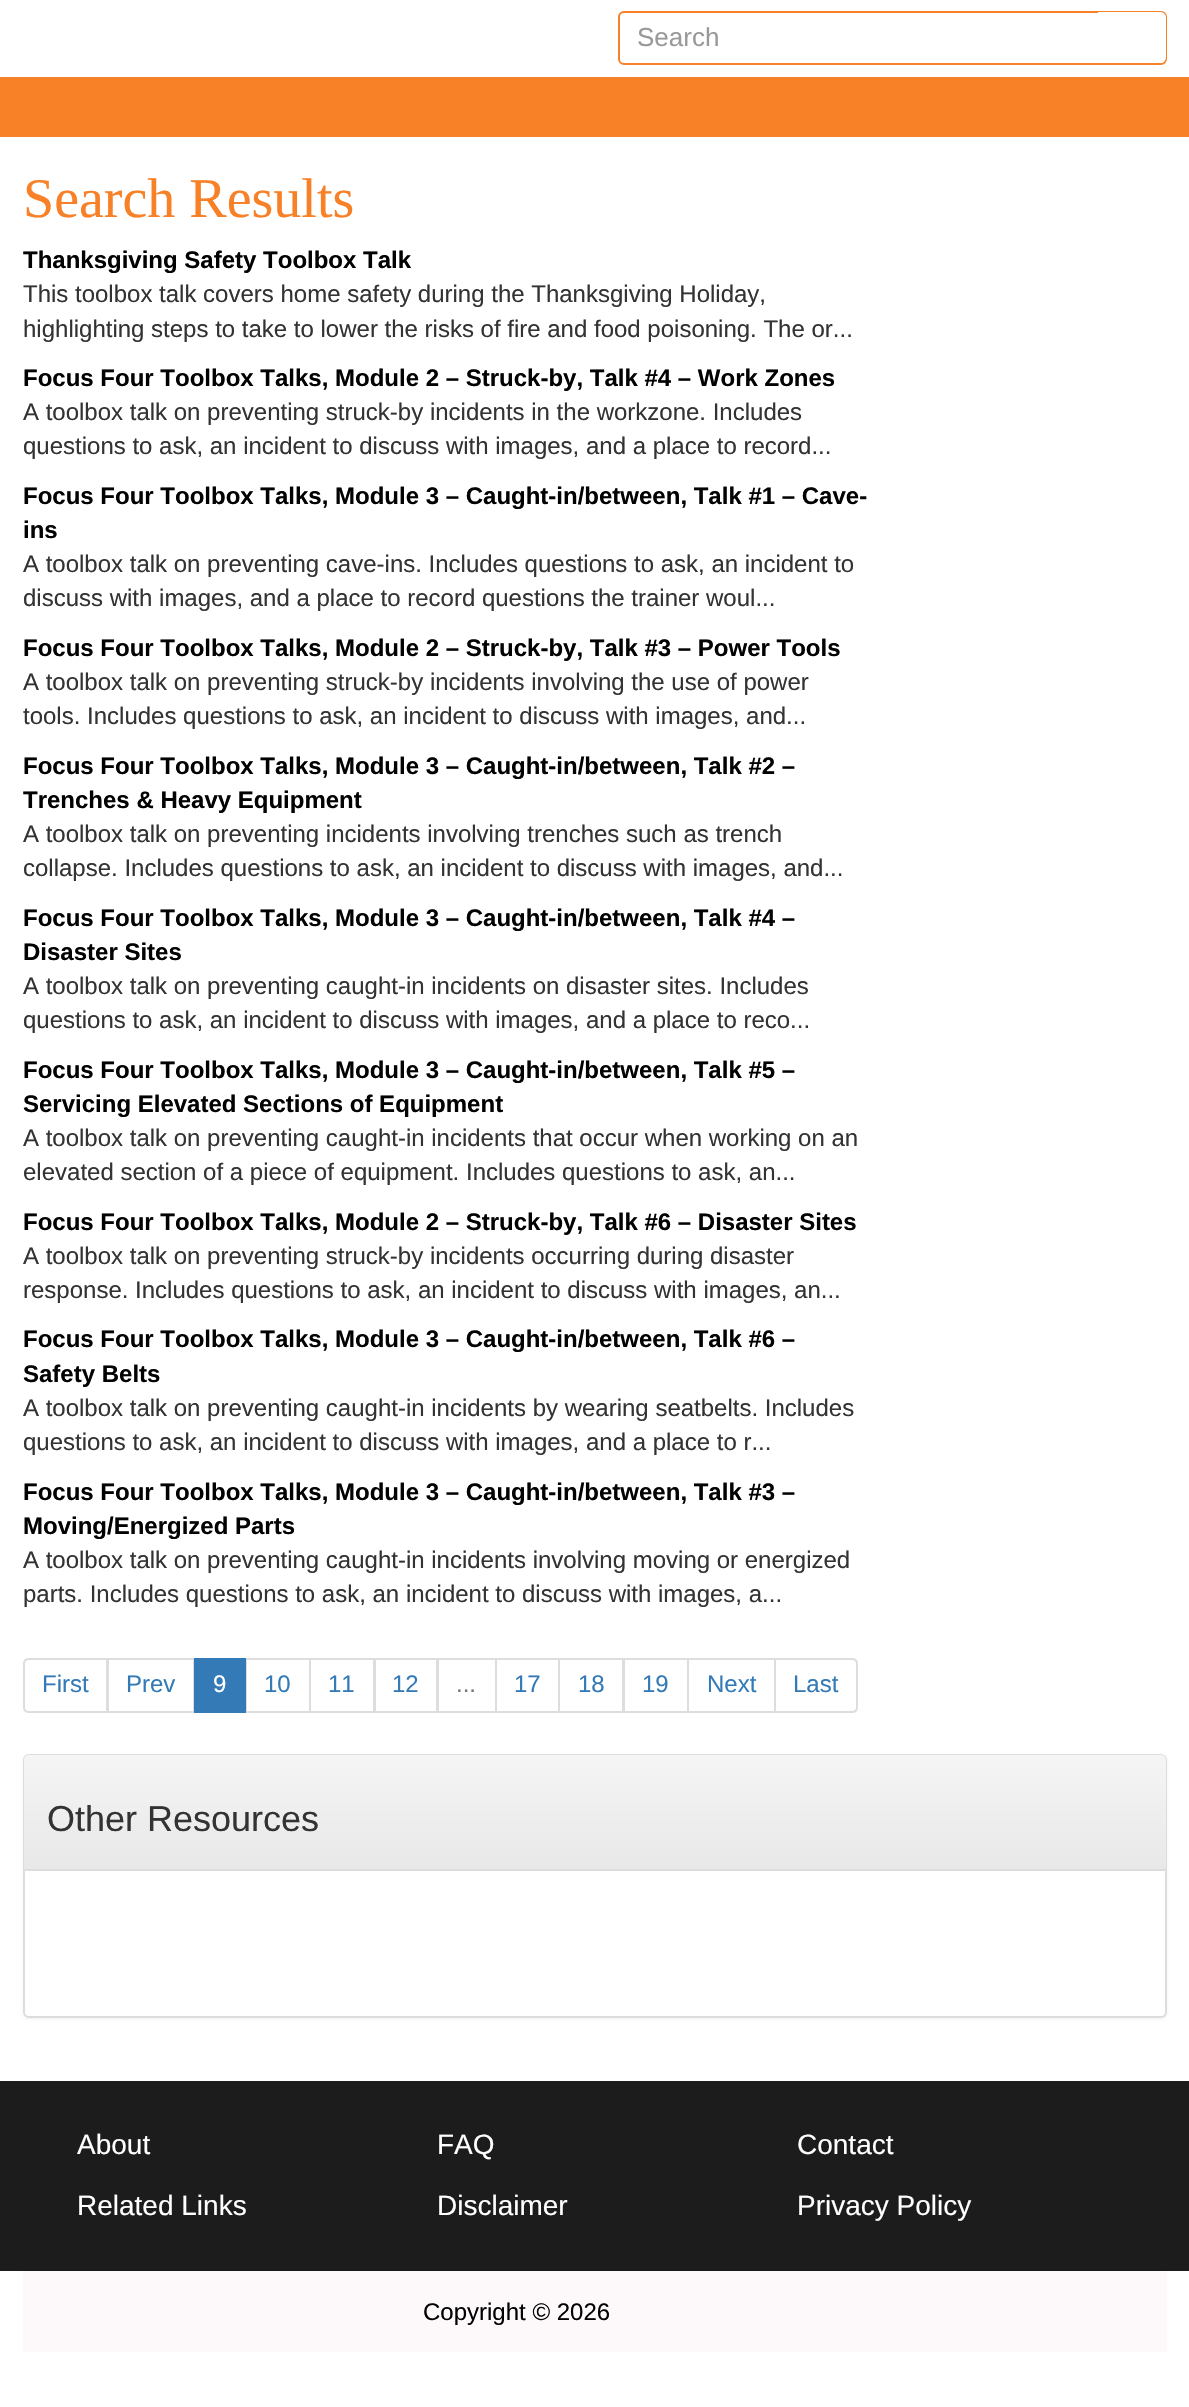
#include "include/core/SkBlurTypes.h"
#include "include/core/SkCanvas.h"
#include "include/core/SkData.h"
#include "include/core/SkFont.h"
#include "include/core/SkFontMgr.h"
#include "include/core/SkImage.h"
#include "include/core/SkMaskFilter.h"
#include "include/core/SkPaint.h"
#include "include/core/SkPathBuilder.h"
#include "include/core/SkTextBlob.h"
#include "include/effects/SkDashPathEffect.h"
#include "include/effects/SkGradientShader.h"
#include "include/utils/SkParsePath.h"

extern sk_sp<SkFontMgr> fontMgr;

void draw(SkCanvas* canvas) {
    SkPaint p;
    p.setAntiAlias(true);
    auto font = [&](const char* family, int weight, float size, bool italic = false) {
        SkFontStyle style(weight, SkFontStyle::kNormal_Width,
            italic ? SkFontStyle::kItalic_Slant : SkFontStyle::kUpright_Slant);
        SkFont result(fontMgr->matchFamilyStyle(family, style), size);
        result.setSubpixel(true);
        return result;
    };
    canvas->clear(0xFFFFFFFF);
    p.setStyle(SkPaint::kStroke_Style);
    p.setStrokeWidth(2);
    p.setColor(0xFFF88127);
    canvas->drawRoundRect(SkRect::MakeLTRB(619, 12, 1166, 64), 5, 5, p);
    auto font1 = font("Liberation Sans", 400, 26);
    p.setStyle(SkPaint::kFill_Style);
    p.setColor(0xFF999999);
    canvas->drawString("Search", 637, 46, font1, p);
    p.setColor(0xFFFFFFFF);
    canvas->drawPath(SkPathBuilder().moveTo(1098, 12).lineTo(1160, 12).cubicTo(1163.5f, 12, 1166, 14.5f, 1166, 18).lineTo(1166, 57).cubicTo(1166, 60.5f, 1163.5f, 63, 1160, 63).lineTo(1098, 63).close().detach(), p);
    p.setColor(0xFFF88127);
    canvas->drawRect(SkRect::MakeLTRB(0, 77, 1189, 137), p);
    auto font2 = font("Liberation Serif", 400, 56);
    canvas->drawString("Search Results", 23, 217, font2, p);
    auto font3 = font("Liberation Sans", 700, 24);
    p.setColor(0xFF020202);
    canvas->drawString("Thanksgiving Safety Toolbox Talk", 23, 268, font3, p);
    auto font4 = font("Liberation Sans", 400, 24);
    p.setColor(0xFF333333);
    canvas->drawString("This toolbox talk covers home safety during the Thanksgiving Holiday,", 23, 302, font4, p);
    canvas->drawString("highlighting steps to take to lower the risks of fire and food poisoning. The or...", 23, 337, font4, p);
    p.setColor(0xFF020202);
    canvas->drawString("Focus Four Toolbox Talks, Module 2 – Struck-by, Talk #4 – Work Zones", 23, 386, font3, p);
    p.setColor(0xFF333333);
    canvas->drawString("A toolbox talk on preventing struck-by incidents in the workzone. Includes", 23, 420, font4, p);
    canvas->drawString("questions to ask, an incident to discuss with images, and a place to record...", 23, 454, font4, p);
    p.setColor(0xFF020202);
    canvas->drawString("Focus Four Toolbox Talks, Module 3 – Caught-in/between, Talk #1 – Cave-", 23, 504, font3, p);
    canvas->drawString("ins", 23, 538, font3, p);
    p.setColor(0xFF333333);
    canvas->drawString("A toolbox talk on preventing cave-ins. Includes questions to ask, an incident to", 23, 572, font4, p);
    canvas->drawString("discuss with images, and a place to record questions the trainer woul...", 23, 606, font4, p);
    p.setColor(0xFF020202);
    canvas->drawString("Focus Four Toolbox Talks, Module 2 – Struck-by, Talk #3 – Power Tools", 23, 656, font3, p);
    p.setColor(0xFF333333);
    canvas->drawString("A toolbox talk on preventing struck-by incidents involving the use of power", 23, 690, font4, p);
    canvas->drawString("tools. Includes questions to ask, an incident to discuss with images, and...", 23, 724, font4, p);
    p.setColor(0xFF020202);
    canvas->drawString("Focus Four Toolbox Talks, Module 3 – Caught-in/between, Talk #2 –", 23, 774, font3, p);
    canvas->drawString("Trenches & Heavy Equipment", 23, 808, font3, p);
    p.setColor(0xFF333333);
    canvas->drawString("A toolbox talk on preventing incidents involving trenches such as trench", 23, 842, font4, p);
    canvas->drawString("collapse. Includes questions to ask, an incident to discuss with images, and...", 23, 876, font4, p);
    p.setColor(0xFF020202);
    canvas->drawString("Focus Four Toolbox Talks, Module 3 – Caught-in/between, Talk #4 –", 23, 926, font3, p);
    canvas->drawString("Disaster Sites", 23, 960, font3, p);
    p.setColor(0xFF333333);
    canvas->drawString("A toolbox talk on preventing caught-in incidents on disaster sites. Includes", 23, 994, font4, p);
    canvas->drawString("questions to ask, an incident to discuss with images, and a place to reco...", 23, 1028, font4, p);
    p.setColor(0xFF020202);
    canvas->drawString("Focus Four Toolbox Talks, Module 3 – Caught-in/between, Talk #5 –", 23, 1078, font3, p);
    canvas->drawString("Servicing Elevated Sections of Equipment", 23, 1112, font3, p);
    p.setColor(0xFF333333);
    canvas->drawString("A toolbox talk on preventing caught-in incidents that occur when working on an", 23, 1146, font4, p);
    canvas->drawString("elevated section of a piece of equipment. Includes questions to ask, an...", 23, 1180, font4, p);
    p.setColor(0xFF020202);
    canvas->drawString("Focus Four Toolbox Talks, Module 2 – Struck-by, Talk #6 – Disaster Sites", 23, 1230, font3, p);
    p.setColor(0xFF333333);
    canvas->drawString("A toolbox talk on preventing struck-by incidents occurring during disaster", 23, 1264, font4, p);
    canvas->drawString("response. Includes questions to ask, an incident to discuss with images, an...", 23, 1298, font4, p);
    p.setColor(0xFF020202);
    canvas->drawString("Focus Four Toolbox Talks, Module 3 – Caught-in/between, Talk #6 –", 23, 1347, font3, p);
    canvas->drawString("Safety Belts", 23, 1382, font3, p);
    p.setColor(0xFF333333);
    canvas->drawString("A toolbox talk on preventing caught-in incidents by wearing seatbelts. Includes", 23, 1416, font4, p);
    canvas->drawString("questions to ask, an incident to discuss with images, and a place to r...", 23, 1450, font4, p);
    p.setColor(0xFF020202);
    canvas->drawString("Focus Four Toolbox Talks, Module 3 – Caught-in/between, Talk #3 –", 23, 1500, font3, p);
    canvas->drawString("Moving/Energized Parts", 23, 1534, font3, p);
    p.setColor(0xFF333333);
    canvas->drawString("A toolbox talk on preventing caught-in incidents involving moving or energized", 23, 1568, font4, p);
    canvas->drawString("parts. Includes questions to ask, an incident to discuss with images, a...", 23, 1602, font4, p);
    p.setStyle(SkPaint::kStroke_Style);
    p.setColor(0xFFDDDDDD);
    canvas->drawPath(SkPathBuilder().moveTo(29, 1659).lineTo(107, 1659).lineTo(107, 1712).lineTo(29, 1712).cubicTo(26, 1712, 24, 1710, 24, 1707).lineTo(24, 1664).cubicTo(24, 1661, 26, 1659, 29, 1659).close().detach(), p);
    p.setStyle(SkPaint::kFill_Style);
    p.setColor(0xFF337AB7);
    canvas->drawString("First", 42, 1692, font4, p);
    p.setStyle(SkPaint::kStroke_Style);
    p.setColor(0xFFDDDDDD);
    canvas->drawRect(SkRect::MakeLTRB(108, 1659, 194, 1712), p);
    p.setStyle(SkPaint::kFill_Style);
    p.setColor(0xFF337AB7);
    canvas->drawString("Prev", 126, 1692, font4, p);
    p.setStyle(SkPaint::kStroke_Style);
    p.setColor(0xFFDDDDDD);
    canvas->drawRect(SkRect::MakeLTRB(246, 1659, 310, 1712), p);
    p.setStyle(SkPaint::kFill_Style);
    p.setColor(0xFF337AB7);
    canvas->drawRect(SkRect::MakeLTRB(194, 1658, 246, 1713), p);
    p.setColor(0xFFFFFFFF);
    canvas->drawString("9", 213, 1692, font4, p);
    p.setColor(0xFF337AB7);
    canvas->drawString("10", 264, 1692, font4, p);
    p.setStyle(SkPaint::kStroke_Style);
    p.setColor(0xFFDDDDDD);
    canvas->drawRect(SkRect::MakeLTRB(310, 1659, 374, 1712), p);
    p.setStyle(SkPaint::kFill_Style);
    p.setColor(0xFF337AB7);
    canvas->drawString("11", 328, 1692, font4, p);
    p.setStyle(SkPaint::kStroke_Style);
    p.setColor(0xFFDDDDDD);
    canvas->drawRect(SkRect::MakeLTRB(375, 1659, 437, 1712), p);
    p.setStyle(SkPaint::kFill_Style);
    p.setColor(0xFF337AB7);
    canvas->drawString("12", 392, 1692, font4, p);
    p.setStyle(SkPaint::kStroke_Style);
    p.setColor(0xFFDDDDDD);
    canvas->drawRect(SkRect::MakeLTRB(438, 1659, 496, 1712), p);
    p.setStyle(SkPaint::kFill_Style);
    p.setColor(0xFF777777);
    canvas->drawString("...", 456, 1692, font4, p);
    p.setStyle(SkPaint::kStroke_Style);
    p.setColor(0xFFDDDDDD);
    canvas->drawRect(SkRect::MakeLTRB(496, 1659, 559, 1712), p);
    p.setStyle(SkPaint::kFill_Style);
    p.setColor(0xFF337AB7);
    canvas->drawString("17", 514, 1692, font4, p);
    p.setStyle(SkPaint::kStroke_Style);
    p.setColor(0xFFDDDDDD);
    canvas->drawRect(SkRect::MakeLTRB(559, 1659, 623, 1712), p);
    p.setStyle(SkPaint::kFill_Style);
    p.setColor(0xFF337AB7);
    canvas->drawString("18", 578, 1692, font4, p);
    p.setStyle(SkPaint::kStroke_Style);
    p.setColor(0xFFDDDDDD);
    canvas->drawRect(SkRect::MakeLTRB(624, 1659, 688, 1712), p);
    p.setStyle(SkPaint::kFill_Style);
    p.setColor(0xFF337AB7);
    canvas->drawString("19", 642, 1692, font4, p);
    p.setStyle(SkPaint::kStroke_Style);
    p.setColor(0xFFDDDDDD);
    canvas->drawRect(SkRect::MakeLTRB(688, 1659, 775, 1712), p);
    p.setStyle(SkPaint::kFill_Style);
    p.setColor(0xFF337AB7);
    canvas->drawString("Next", 707, 1692, font4, p);
    p.setColor(0xFFFFFFFF);
    canvas->drawPath(SkPathBuilder().moveTo(775, 1659).lineTo(852, 1659).cubicTo(855, 1659, 857, 1661, 857, 1664).lineTo(857, 1707).cubicTo(857, 1710, 855, 1712, 852, 1712).lineTo(775, 1712).close().detach(), p);
    p.setStyle(SkPaint::kStroke_Style);
    p.setColor(0xFFDDDDDD);
    canvas->drawPath(SkPathBuilder().moveTo(775, 1659).lineTo(852, 1659).cubicTo(855, 1659, 857, 1661, 857, 1664).lineTo(857, 1707).cubicTo(857, 1710, 855, 1712, 852, 1712).lineTo(775, 1712).close().detach(), p);
    p.setStyle(SkPaint::kFill_Style);
    p.setColor(0xFF337AB7);
    canvas->drawString("Last", 793, 1692, font4, p);
    p.setColor(0x0D000000);
    p.setMaskFilter(SkMaskFilter::MakeBlur(kNormal_SkBlurStyle, 1.5f));
    canvas->drawRoundRect(SkRect::MakeLTRB(23, 1755, 1167, 2019), 6, 6, p);
    p.setMaskFilter(nullptr);
    p.setColor(0xFFFFFFFF);
    canvas->drawRoundRect(SkRect::MakeLTRB(24, 1755, 1166, 2017), 5, 5, p);
    p.setStyle(SkPaint::kStroke_Style);
    p.setColor(0xFFDDDDDD);
    canvas->drawRoundRect(SkRect::MakeLTRB(24, 1755, 1166, 2017), 5, 5, p);
    p.setStyle(SkPaint::kFill_Style);
    {
        const SkColor colors[] = {0xFFF5F5F5, 0xFFE8E8E8};
        const float stops[] = {0, 1};
        const SkPoint ends[] = {{595, 1755}, {595, 1869}};
        p.setShader(SkGradientShader::MakeLinear(ends, colors, stops, 2, SkTileMode::kClamp));
        p.setAlpha(255);
    }
    canvas->drawPath(SkPathBuilder().moveTo(29, 1755).lineTo(1161, 1755).cubicTo(1164, 1755, 1166, 1757, 1166, 1760).lineTo(1166, 1869).lineTo(24, 1869).lineTo(24, 1760).cubicTo(24, 1757, 26, 1755, 29, 1755).close().detach(), p);
    p.setShader(nullptr);
    p.setColor(0xFFDDDDDD);
    canvas->drawRect(SkRect::MakeLTRB(24, 1869, 1166, 1871), p);
    auto font5 = font("Liberation Sans", 400, 36);
    p.setColor(0xFF333333);
    canvas->drawString("Other Resources", 47, 1831, font5, p);
    p.setColor(0xFF1C1C1C);
    canvas->drawRect(SkRect::MakeLTRB(0, 2081, 1189, 2271), p);
    auto font6 = font("Liberation Sans", 400, 28);
    p.setColor(0xFFFFFFFF);
    {
        const struct { const char* s; float x, y; } items[] = {
            {"About", 77, 2154},
            {"FAQ", 437, 2154},
            {"Contact", 797, 2154},
            {"Related Links", 77, 2215},
            {"Disclaimer", 437, 2215},
            {"Privacy Policy", 797, 2215},
        };
        for (auto [s, x, y] : items) {
            canvas->drawString(s, x, y, font6, p);
        }
    }
    p.setColor(0xFFFDF9FA);
    canvas->drawRect(SkRect::MakeLTRB(23, 2271, 1167, 2352), p);
    p.setColor(0xFF020202);
    canvas->drawString("Copyright © 2026", 423, 2320, font4, p);
}
